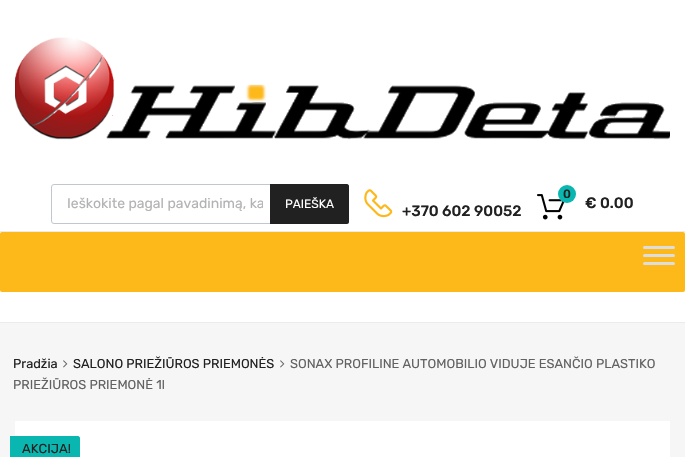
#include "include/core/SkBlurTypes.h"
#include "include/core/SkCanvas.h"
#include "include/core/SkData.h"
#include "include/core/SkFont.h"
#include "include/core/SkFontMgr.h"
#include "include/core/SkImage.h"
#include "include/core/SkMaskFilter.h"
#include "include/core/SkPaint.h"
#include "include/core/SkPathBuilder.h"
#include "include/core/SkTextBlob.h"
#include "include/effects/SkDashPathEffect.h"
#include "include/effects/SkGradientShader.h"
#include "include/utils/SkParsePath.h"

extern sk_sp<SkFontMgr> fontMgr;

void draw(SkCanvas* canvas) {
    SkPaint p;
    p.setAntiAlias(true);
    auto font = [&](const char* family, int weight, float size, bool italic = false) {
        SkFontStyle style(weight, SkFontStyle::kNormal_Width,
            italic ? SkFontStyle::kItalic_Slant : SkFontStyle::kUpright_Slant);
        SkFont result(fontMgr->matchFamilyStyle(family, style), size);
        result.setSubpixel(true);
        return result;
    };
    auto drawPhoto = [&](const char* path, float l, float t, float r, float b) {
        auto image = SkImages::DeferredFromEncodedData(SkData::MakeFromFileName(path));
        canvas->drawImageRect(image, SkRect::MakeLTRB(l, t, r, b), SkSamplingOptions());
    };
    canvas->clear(0xFFF6F6F6);
    p.setColor(0xFFFFFFFF);
    canvas->drawRect(SkRect::MakeLTRB(0, 0, 685, 322), p);
    drawPhoto("media/1.png", 15, 37, 670, 140);
    p.setStyle(SkPaint::kStroke_Style);
    p.setStrokeWidth(1);
    p.setColor(0xFFBEC8CE);
    canvas->drawRoundRect(SkRect::MakeLTRB(51.5f, 184.5f, 348.5f, 223.5f), 2.5f, 2.5f, p);
    canvas->save();
    canvas->clipRect(SkRect::MakeLTRB(67, 195, 263, 212));
    auto font1 = font("Rubik", 400, 14);
    p.setStyle(SkPaint::kFill_Style);
    p.setColor(0xFFB3B3B3);
    canvas->drawString("Ieškokite pagal pavadinimą, ka", 67, 208, font1, p);
    canvas->restore();
    p.setColor(0xFF212121);
    canvas->drawPath(SkPathBuilder().moveTo(270, 184).lineTo(347, 184).cubicTo(348, 184, 349, 185, 349, 186).lineTo(349, 222).cubicTo(349, 223, 348, 224, 347, 224).lineTo(270, 224).close().detach(), p);
    auto font2 = font("Rubik", 400, 12);
    p.setColor(0xFFFFFFFF);
    canvas->drawString("PAIEŠKA", 285, 208, font2, p);
    drawPhoto("media/2.png", 364, 189, 393, 218);
    auto font3 = font("Rubik", 500, 15);
    p.setColor(0xFF212121);
    canvas->drawString("+370 602 90052", 402, 216, font3, p);
    drawPhoto("media/3.png", 537, 194, 565, 220);
    p.setColor(0xFF09B6B0);
    canvas->drawCircle(567, 194, 9, p);
    auto font4 = font("Rubik", 500, 12);
    p.setColor(0xFF212121);
    canvas->drawString("0", 563, 198, font4, p);
    canvas->drawString("€ 0.00", 585, 208, font3, p);
    p.setColor(0xFFEBEBEB);
    canvas->drawRect(SkRect::MakeLTRB(0, 231, 685, 232), p);
    canvas->drawRect(SkRect::MakeLTRB(0, 322, 685, 323), p);
    p.setColor(0xFFFDB819);
    canvas->drawRoundRect(SkRect::MakeLTRB(0, 232, 685, 292), 2, 2, p);
    p.setColor(0xFFDDDDDD);
    canvas->drawRoundRect(SkRect::MakeLTRB(643, 246, 675, 249), 1.5f, 1.5f, p);
    canvas->drawRoundRect(SkRect::MakeLTRB(643, 254, 675, 257), 1.5f, 1.5f, p);
    canvas->drawRoundRect(SkRect::MakeLTRB(643, 262, 675, 265), 1.5f, 1.5f, p);
    auto font5 = font("Rubik", 400, 12.85f);
    p.setColor(0xFF212121);
    canvas->drawString("Pradžia", 13, 368, font5, p);
    drawPhoto("media/4.png", 63, 360, 68, 368);
    canvas->drawString("SALONO PRIEŽIŪROS PRIEMONĖS", 73, 368, font5, p);
    drawPhoto("media/4.png", 280, 360, 285, 368);
    p.setColor(0xFF626262);
    canvas->drawString("SONAX PROFILINE AUTOMOBILIO VIDUJE ESANČIO PLASTIKO", 290, 368, font5, p);
    canvas->drawString("PRIEŽIŪROS PRIEMONĖ 1l", 13, 389, font5, p);
    p.setColor(0xFFFFFFFF);
    canvas->drawRect(SkRect::MakeLTRB(15, 421, 670, 457), p);
    p.setColor(0xFF09B6B0);
    canvas->drawPath(SkPathBuilder().moveTo(10, 436).lineTo(78, 436).cubicTo(79, 436, 80, 437, 80, 438).lineTo(80, 457).cubicTo(80, 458, 79, 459, 78, 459).lineTo(10, 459).close().detach(), p);
    auto font6 = font("Rubik", 400, 13);
    p.setColor(0xFF212121);
    canvas->drawString("AKCIJA!", 22, 453, font6, p);
}
